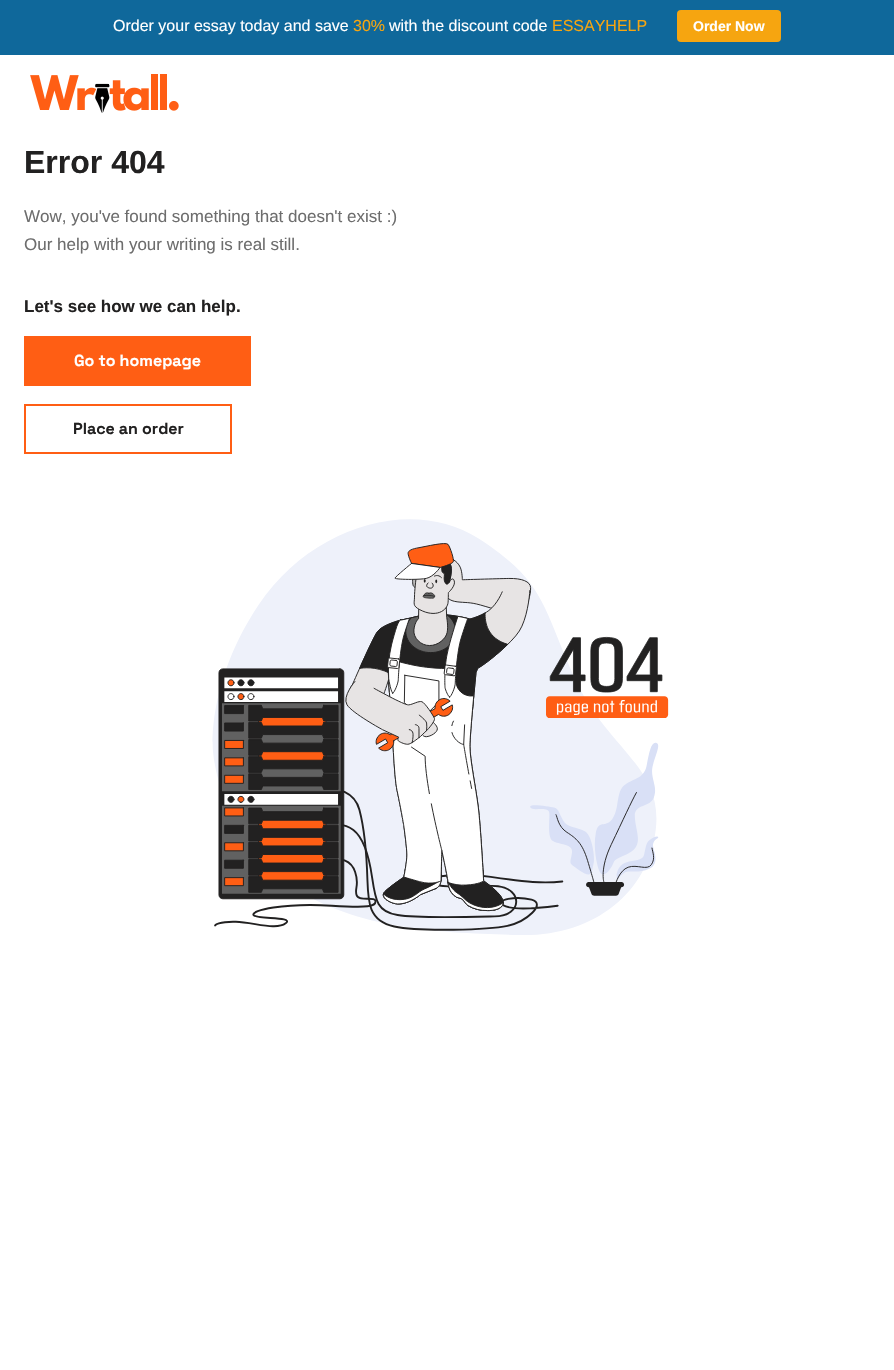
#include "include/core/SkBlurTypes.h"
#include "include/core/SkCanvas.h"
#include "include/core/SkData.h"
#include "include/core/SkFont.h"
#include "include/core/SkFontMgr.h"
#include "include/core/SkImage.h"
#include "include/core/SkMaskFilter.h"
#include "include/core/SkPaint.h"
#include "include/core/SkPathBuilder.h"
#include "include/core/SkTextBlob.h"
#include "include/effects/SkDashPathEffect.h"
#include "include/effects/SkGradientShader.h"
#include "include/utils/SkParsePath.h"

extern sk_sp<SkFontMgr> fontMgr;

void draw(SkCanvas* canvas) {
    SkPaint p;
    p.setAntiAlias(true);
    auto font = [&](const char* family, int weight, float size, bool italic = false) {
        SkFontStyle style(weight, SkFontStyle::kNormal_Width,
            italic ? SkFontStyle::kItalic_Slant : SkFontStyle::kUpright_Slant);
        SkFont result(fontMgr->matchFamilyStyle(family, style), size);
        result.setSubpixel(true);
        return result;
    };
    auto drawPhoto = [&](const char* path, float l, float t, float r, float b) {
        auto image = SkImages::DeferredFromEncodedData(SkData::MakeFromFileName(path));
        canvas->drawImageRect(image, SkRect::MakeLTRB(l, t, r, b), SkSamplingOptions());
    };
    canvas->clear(0xFFFFFFFF);
    p.setColor(0xFF0F689B);
    canvas->drawRect(SkRect::MakeLTRB(0, 0, 894, 55), p);
    auto font1 = font("Liberation Sans", 400, 16);
    p.setColor(0xFFFFFFFF);
    canvas->drawString("Order your essay today and save", 113, 31, font1, p);
    p.setColor(0xFFF6A510);
    canvas->drawString("30%", 353, 31, font1, p);
    p.setColor(0xFFFFFFFF);
    canvas->drawString("with the discount code", 389, 31, font1, p);
    p.setColor(0xFFF6A510);
    canvas->drawString("ESSAYHELP", 552, 31, font1, p);
    canvas->drawRoundRect(SkRect::MakeLTRB(677, 10, 781, 42), 4, 4, p);
    auto font2 = font("Liberation Sans", 700, 14);
    p.setColor(0xFFFFFFFF);
    canvas->drawString("Order Now", 693, 31, font2, p);
    drawPhoto("media/1.png", 30, 74, 179, 113);
    auto font3 = font("Liberation Sans", 700, 32);
    p.setColor(0xFF222121);
    canvas->drawString("Error 404", 24, 173, font3, p);
    auto font4 = font("Liberation Sans", 400, 17);
    p.setColor(0xFF6D6D6D);
    canvas->drawString("Wow, you've found something that doesn't exist :)", 24, 222, font4, p);
    canvas->drawString("Our help with your writing is real still.", 24, 250, font4, p);
    auto font5 = font("Liberation Sans", 700, 17);
    p.setColor(0xFF222121);
    canvas->drawString("Let's see how we can help.", 24, 312, font5, p);
    p.setColor(0xFFFF5E14);
    canvas->drawRect(SkRect::MakeLTRB(24, 336, 251, 386), p);
    auto font6 = font("Space Grotesk", 700, 16);
    p.setColor(0xFFFFFFFF);
    canvas->drawString("Go to homepage", 74, 366, font6, p);
    p.setStyle(SkPaint::kStroke_Style);
    p.setStrokeWidth(2);
    p.setColor(0xFFFF5E14);
    canvas->drawRect(SkRect::MakeLTRB(25, 405, 231, 453), p);
    p.setStyle(SkPaint::kFill_Style);
    p.setColor(0xFF222121);
    canvas->drawString("Place an order", 73, 434, font6, p);
    drawPhoto("media/2.png", 212, 519, 669, 935);
}
